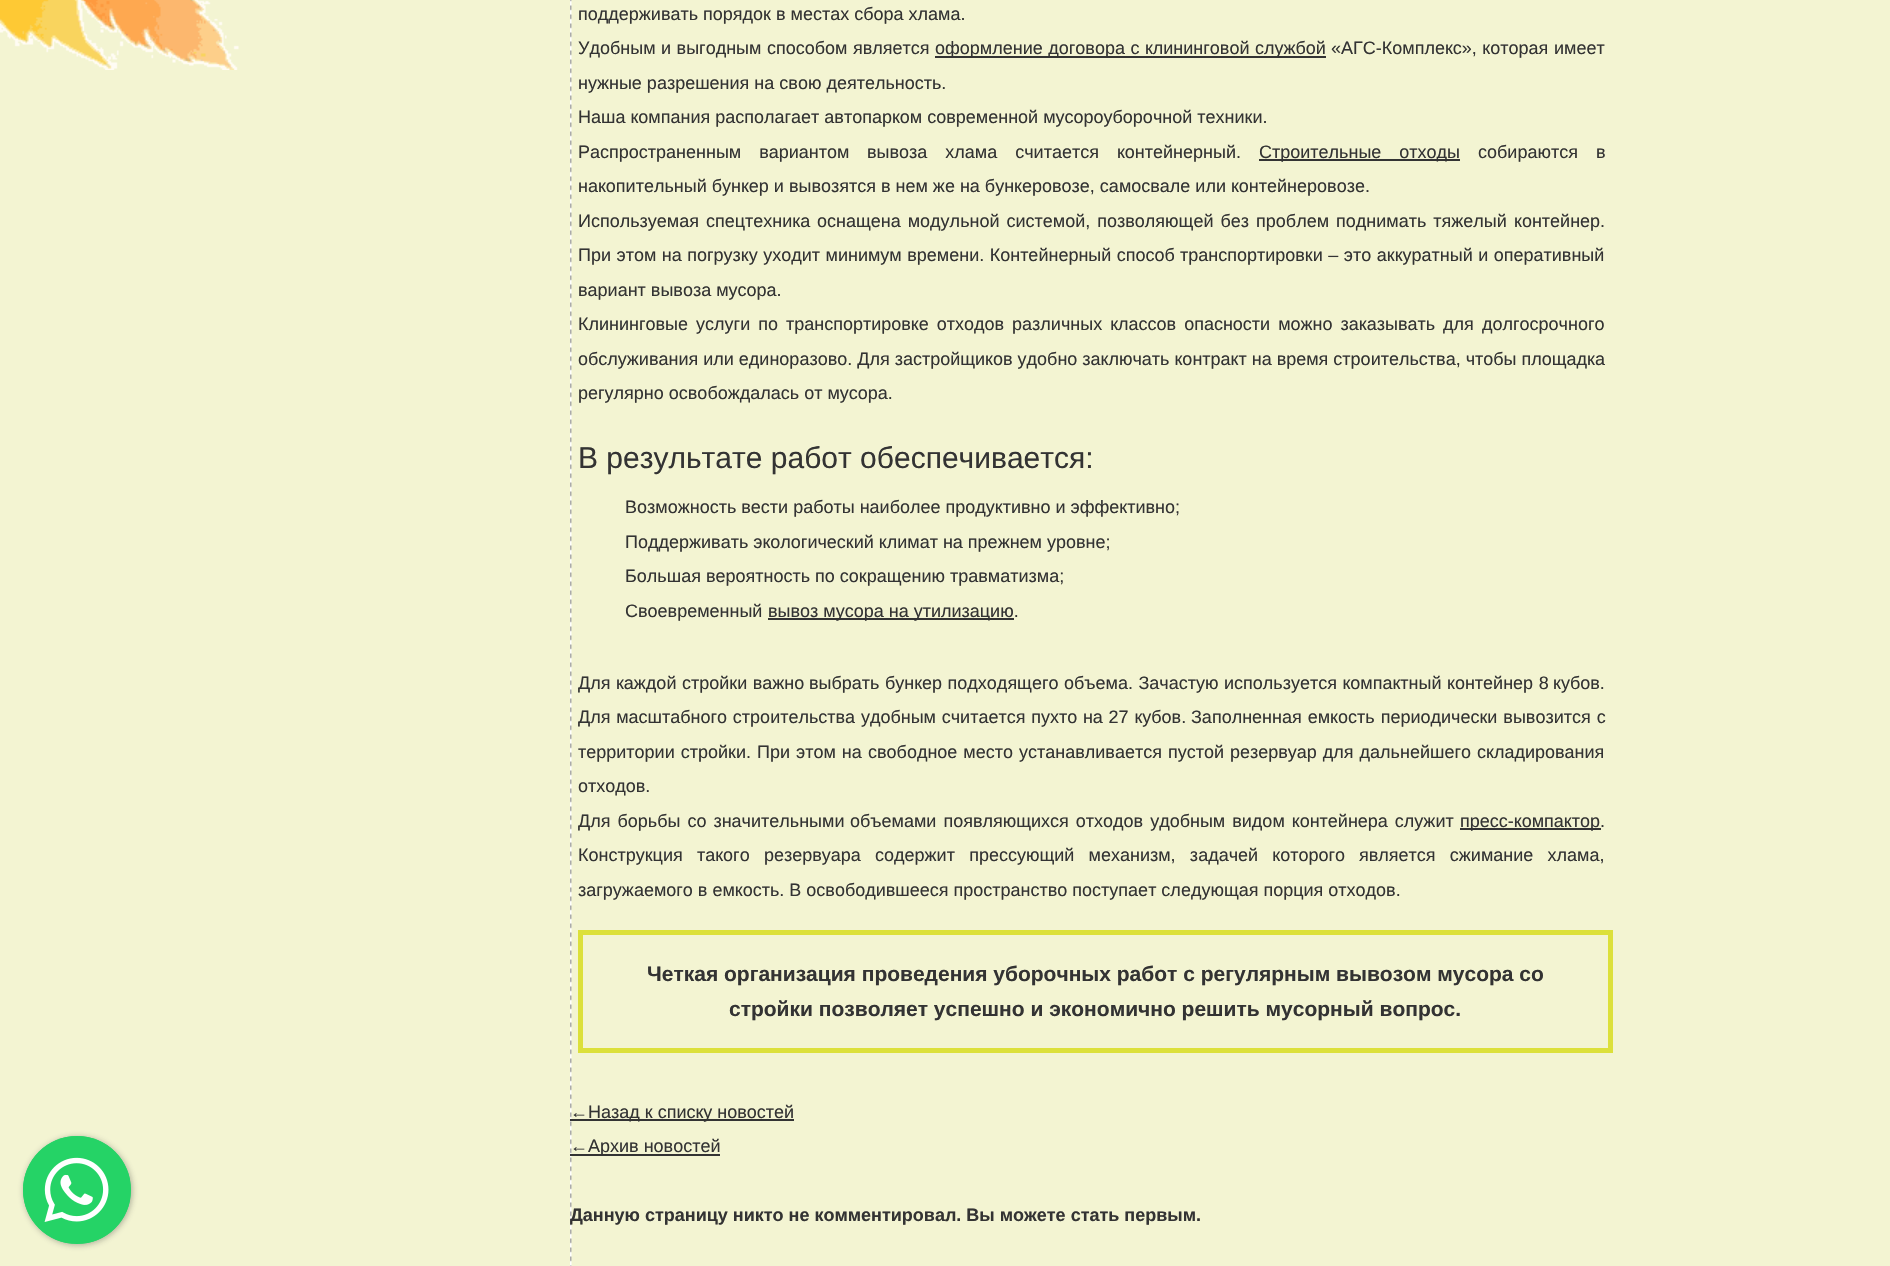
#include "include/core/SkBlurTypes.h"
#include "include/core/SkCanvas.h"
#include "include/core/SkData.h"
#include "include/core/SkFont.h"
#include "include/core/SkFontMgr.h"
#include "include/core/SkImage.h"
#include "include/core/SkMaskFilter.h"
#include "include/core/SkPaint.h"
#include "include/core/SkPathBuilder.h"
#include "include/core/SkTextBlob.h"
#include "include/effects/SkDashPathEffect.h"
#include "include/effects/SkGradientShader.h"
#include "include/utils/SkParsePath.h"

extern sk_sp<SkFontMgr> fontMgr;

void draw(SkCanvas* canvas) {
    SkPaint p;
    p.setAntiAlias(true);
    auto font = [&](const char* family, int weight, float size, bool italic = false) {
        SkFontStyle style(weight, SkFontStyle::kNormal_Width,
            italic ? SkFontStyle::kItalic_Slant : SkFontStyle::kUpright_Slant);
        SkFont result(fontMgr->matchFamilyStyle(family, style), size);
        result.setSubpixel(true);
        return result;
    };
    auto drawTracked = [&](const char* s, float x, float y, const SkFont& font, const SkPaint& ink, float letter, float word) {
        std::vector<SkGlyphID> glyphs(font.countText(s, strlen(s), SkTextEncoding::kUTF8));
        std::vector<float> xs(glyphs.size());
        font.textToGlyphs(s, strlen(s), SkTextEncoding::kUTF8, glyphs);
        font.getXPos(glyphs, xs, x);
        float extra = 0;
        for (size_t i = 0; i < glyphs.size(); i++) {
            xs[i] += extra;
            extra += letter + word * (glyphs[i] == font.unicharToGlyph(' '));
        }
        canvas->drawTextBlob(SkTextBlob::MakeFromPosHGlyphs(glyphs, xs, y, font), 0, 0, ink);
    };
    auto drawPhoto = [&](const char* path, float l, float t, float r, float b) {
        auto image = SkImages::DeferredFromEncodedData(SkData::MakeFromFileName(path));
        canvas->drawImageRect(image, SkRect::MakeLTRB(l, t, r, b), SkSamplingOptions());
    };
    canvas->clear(0xFFF3F4D2);
    drawPhoto("media/1.png", 0, 0, 239, 70);
    p.setColor(0x663C3C3C);
    p.setMaskFilter(SkMaskFilter::MakeBlur(kNormal_SkBlurStyle, 3));
    canvas->drawRoundRect(SkRect::MakeLTRB(24, 1137, 132, 1245), 54, 54, p);
    p.setMaskFilter(nullptr);
    p.setColor(0xFF25D366);
    canvas->drawCircle(77, 1190, 54, p);
    drawPhoto("media/2.png", 23, 1136, 131, 1244);
    drawPhoto("media/3.png", 570, 0, 572, 1266);
    auto font1 = font("Liberation Sans", 400, 18);
    p.setColor(0xFF333333);
    canvas->drawString("поддерживать порядок в местах сбора хлама.", 578, 20, font1, p);
    drawTracked("Удобным и выгодным способом", 578, 54, font1, p, 0, 0.5f);
    canvas->drawString("является", 853, 54, font1, p);
    canvas->drawRect(SkRect::MakeLTRB(935, 56, 1326, 58), p);
    drawTracked("оформление договора с клининговой службой", 935, 54, font1, p, 0, 0.5f);
    drawTracked("«АГС-Комплекс», которая", 1331, 54, font1, p, 0, 0.5f);
    {
        const struct { const char* s; float x, y; } items[] = {
            {"имеет", 1554, 54},
            {"нужные разрешения на свою деятельность.", 578, 89},
            {"Наша компания располагает автопарком современной мусороуборочной техники.", 578, 123},
        };
        for (auto [s, x, y] : items) {
            canvas->drawString(s, x, y, font1, p);
        }
    }
    drawTracked("Распространенным вариантом", 578, 158, font1, p, 0, 13);
    drawTracked("вывоза хлама считается контейнерный.", 867, 158, font1, p, 0, 13);
    canvas->drawRect(SkRect::MakeLTRB(1259, 159, 1460, 161), p);
    drawTracked("Строительные отходы", 1259, 158, font1, p, 0, 13);
    drawTracked("собираются в", 1478, 158, font1, p, 0, 13);
    canvas->drawString("накопительный бункер и вывозятся в нем же на бункеровозе, самосвале или контейнеровозе.", 578, 192, font1, p);
    drawTracked("Используемая спецтехника", 578, 227, font1, p, 0, 2);
    drawTracked("оснащена модульной системой, позволяющей без проблем поднимать тяжелый", 817, 227, font1, p, 0, 2);
    canvas->drawString("контейнер.", 1514, 227, font1, p);
    drawTracked("При этом на погрузку уходит минимум времени. Контейнерный способ", 578, 261, font1, p, 0, 0.5f);
    drawTracked("транспортировки – это аккуратный и оперативный", 1180, 261, font1, p, 0, 0.5f);
    canvas->drawString("вариант вывоза мусора.", 578, 296, font1, p);
    drawTracked("Клининговые услуги по", 578, 330, font1, p, 0, 3);
    drawTracked("транспортировке отходов различных классов опасности можно заказывать для", 786, 330, font1, p, 0, 3);
    {
        const struct { const char* s; float x, y; } items[] = {
            {"долгосрочного", 1482, 330},
            {"обслуживания или единоразово. Для застройщиков удобно заключать контракт на время строительства, чтобы площадка", 578, 365},
            {"регулярно освобождалась от мусора.", 578, 399},
        };
        for (auto [s, x, y] : items) {
            canvas->drawString(s, x, y, font1, p);
        }
    }
    auto font2 = font("Liberation Sans", 400, 30);
    canvas->drawString("В результате работ обеспечивается:", 578, 468, font2, p);
    {
        const struct { const char* s; float x, y; } items[] = {
            {"Возможность вести работы наиболее продуктивно и эффективно;", 625, 513},
            {"Поддерживать экологический климат на прежнем уровне;", 625, 548},
            {"Большая вероятность по сокращению травматизма;", 625, 582},
            {"Своевременный", 625, 617},
        };
        for (auto [s, x, y] : items) {
            canvas->drawString(s, x, y, font1, p);
        }
    }
    canvas->drawRect(SkRect::MakeLTRB(768, 618, 1014, 620), p);
    canvas->drawString("вывоз мусора на утилизацию.", 768, 617, font1, p);
    drawTracked("Для каждой стройки важно", 578, 689, font1, p, 0, 0.5f);
    drawTracked("выбрать бункер подходящего объема. Зачастую используется компактный контейнер 8", 809, 689, font1, p, 0, 0.5f);
    canvas->drawString("кубов.", 1553, 689, font1, p);
    drawTracked("Для масштабного строительства удобным считается пухто на 27 кубов.", 578, 723, font1, p, 0, 0.75f);
    {
        const struct { const char* s; float x, y; } items[] = {
            {"Заполненная емкость периодически вывозится с", 1191, 723},
            {"территории стройки. При этом на", 578, 758},
            {"свободное место устанавливается пустой резервуар для дальнейшего складирования", 868, 758},
        };
        for (auto [s, x, y] : items) {
            drawTracked(s, x, y, font1, p, 0, 1);
        }
    }
    canvas->drawString("отходов.", 578, 792, font1, p);
    drawTracked("Для борьбы со значительными", 578, 827, font1, p, 0, 2);
    drawTracked("объемами появляющихся отходов удобным видом контейнера служит", 850, 827, font1, p, 0, 2);
    canvas->drawRect(SkRect::MakeLTRB(1460, 828, 1601, 830), p);
    canvas->drawString("пресс-компактор.", 1460, 827, font1, p);
    drawTracked("Конструкция такого резервуара содержит прессующий механизм, задачей которого", 578, 861, font1, p, 0, 9.25f);
    drawTracked("является сжимание хлама,", 1359, 861, font1, p, 0, 9.25f);
    canvas->drawString("загружаемого в емкость. В освободившееся пространство поступает следующая порция отходов.", 578, 896, font1, p);
    p.setStyle(SkPaint::kStroke_Style);
    p.setStrokeWidth(5);
    p.setColor(0xFFDCE03A);
    canvas->drawRect(SkRect::MakeLTRB(580.5f, 932.5f, 1610.5f, 1050.5f), p);
    auto font3 = font("Liberation Sans", 700, 21);
    p.setStyle(SkPaint::kFill_Style);
    p.setColor(0xFF333333);
    canvas->drawString("Четкая организация проведения уборочных работ с регулярным вывозом мусора со", 647, 981, font3, p);
    canvas->drawString("стройки позволяет успешно и экономично решить мусорный вопрос.", 729, 1016, font3, p);
    canvas->drawRect(SkRect::MakeLTRB(570, 1119, 794, 1121), p);
    canvas->drawString("←Назад к списку новостей", 570, 1118, font1, p);
    canvas->drawRect(SkRect::MakeLTRB(570, 1154, 720, 1156), p);
    canvas->drawString("←Архив новостей", 570, 1152, font1, p);
    auto font4 = font("Liberation Sans", 700, 18);
    canvas->drawString("Данную страницу никто не комментировал. Вы можете стать первым.", 570, 1221, font4, p);
}
